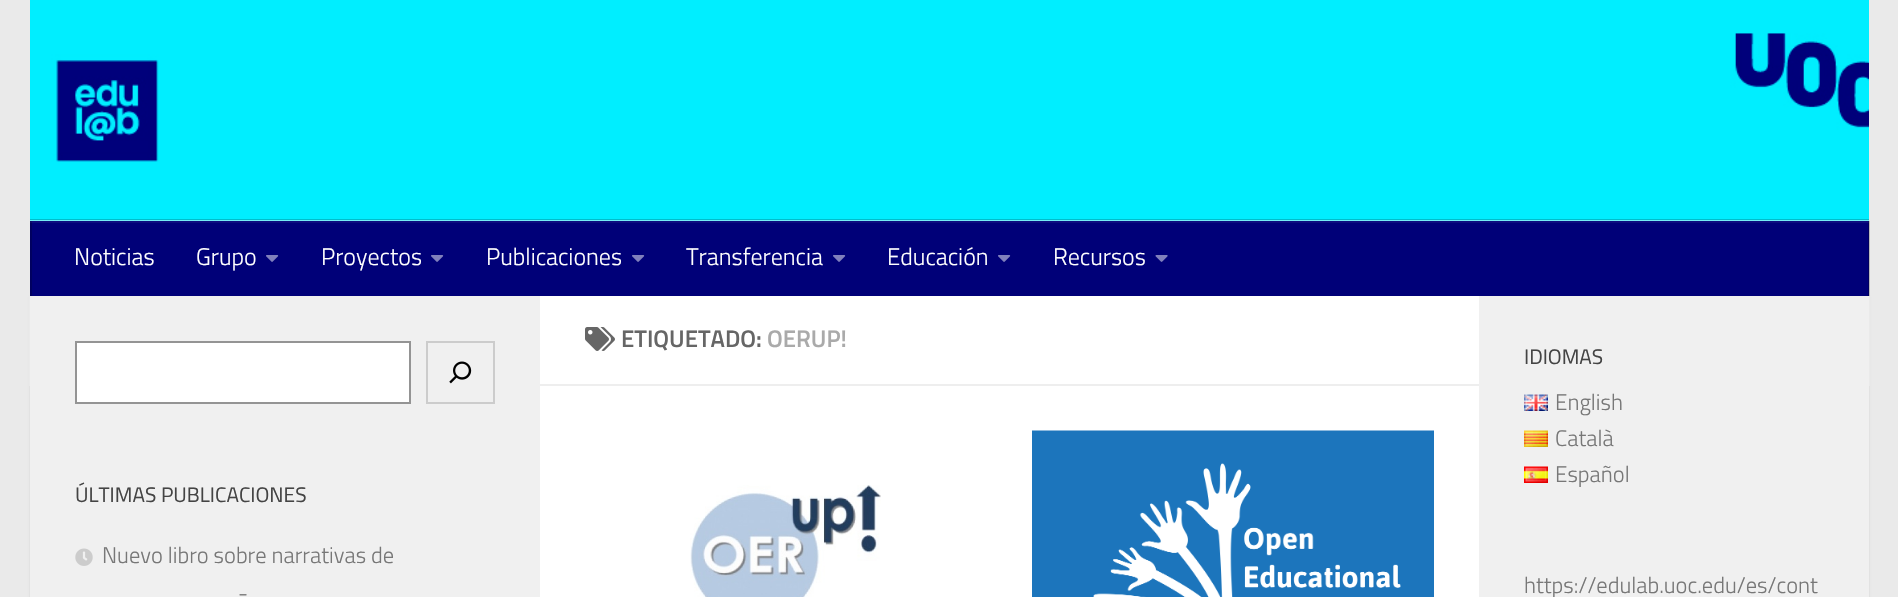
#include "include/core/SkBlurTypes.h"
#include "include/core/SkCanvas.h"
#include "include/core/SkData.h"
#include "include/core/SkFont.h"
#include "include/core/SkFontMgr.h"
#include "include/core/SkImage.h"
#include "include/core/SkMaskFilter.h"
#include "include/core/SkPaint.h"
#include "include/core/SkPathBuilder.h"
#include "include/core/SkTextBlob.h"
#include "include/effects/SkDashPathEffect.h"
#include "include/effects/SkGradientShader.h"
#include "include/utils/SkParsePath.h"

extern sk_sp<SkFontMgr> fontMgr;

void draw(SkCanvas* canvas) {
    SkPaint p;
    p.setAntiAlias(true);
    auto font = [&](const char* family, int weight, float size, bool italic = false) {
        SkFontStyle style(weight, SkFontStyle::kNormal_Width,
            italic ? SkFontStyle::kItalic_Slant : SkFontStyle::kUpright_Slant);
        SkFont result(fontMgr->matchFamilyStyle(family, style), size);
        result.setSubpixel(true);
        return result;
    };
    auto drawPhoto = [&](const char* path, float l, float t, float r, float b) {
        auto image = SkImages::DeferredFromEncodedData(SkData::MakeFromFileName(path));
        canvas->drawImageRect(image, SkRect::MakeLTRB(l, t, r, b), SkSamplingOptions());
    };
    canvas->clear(0xFFEAEAEA);
    p.setColor(0x1A000000);
    p.setMaskFilter(SkMaskFilter::MakeBlur(kNormal_SkBlurStyle, 1));
    canvas->drawRect(SkRect::MakeLTRB(30, 297, 1869, 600), p);
    p.setMaskFilter(nullptr);
    p.setColor(0xFFEAEAEA);
    canvas->drawRect(SkRect::MakeLTRB(29, 296, 1870, 386), p);
    drawPhoto("media/1.png", 30, 0, 1869, 221);
    {
        const struct { float l, t, r, b; SkColor color; } items[] = {
            {30, 219, 1869, 220, 0xFF00BECC},
            {32, 221, 1869, 296, 0xFF000078},
            {1868, 221, 1870, 296, 0x33000000},
            {30, 221, 32, 296, 0xFF000060},
            {30, 221, 1869, 223, 0x0DFFFFFF},
        };
        for (auto [l, t, r, b, color] : items) {
            p.setColor(color);
            canvas->drawRect(SkRect::MakeLTRB(l, t, r, b), p);
        }
    }
    auto font1 = font("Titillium", 300, 24);
    p.setColor(0xFFFFFFFF);
    canvas->drawString("Noticias", 74, 265, font1, p);
    canvas->drawString("Grupo", 196, 265, font1, p);
    drawPhoto("media/2.png", 266, 255, 279, 262);
    canvas->drawString("Proyectos", 321, 265, font1, p);
    drawPhoto("media/2.png", 431, 255, 444, 262);
    canvas->drawString("Publicaciones", 486, 265, font1, p);
    drawPhoto("media/2.png", 632, 255, 645, 262);
    canvas->drawString("Transferencia", 686, 265, font1, p);
    drawPhoto("media/2.png", 833, 255, 846, 262);
    canvas->drawString("Educación", 887, 265, font1, p);
    drawPhoto("media/2.png", 998, 255, 1011, 262);
    canvas->drawString("Recursos", 1053, 265, font1, p);
    drawPhoto("media/3.png", 1155, 255, 1168, 262);
    {
        const struct { float l, t, r, b; SkColor color; } items[] = {
            {540, 296, 1479, 597, 0xFFFFFFFF},
            {30, 296, 540, 597, 0xFFF0F0F0},
            {1479, 296, 1869, 597, 0xFFF0F0F0},
            {540, 384, 1479, 386, 0xFFEEEEEE},
        };
        for (auto [l, t, r, b, color] : items) {
            p.setColor(color);
            canvas->drawRect(SkRect::MakeLTRB(l, t, r, b), p);
        }
    }
    drawPhoto("media/4.png", 585, 327, 615, 351);
    auto font2 = font("Titillium", 600, 24);
    p.setColor(0xFF666666);
    canvas->drawString("ETIQUETADO:", 621, 347, font2, p);
    p.setColor(0xFFAAAAAA);
    canvas->drawString("OERUP!", 767, 347, font2, p);
    drawPhoto("media/5.png", 690, 485, 881, 597);
    drawPhoto("media/6.png", 1032, 430, 1434, 597);
    p.setColor(0xFFFFFFFF);
    canvas->drawRect(SkRect::MakeLTRB(76, 342, 410, 403), p);
    p.setStyle(SkPaint::kStroke_Style);
    p.setStrokeWidth(2);
    p.setColor(0xFF949494);
    canvas->drawRect(SkRect::MakeLTRB(76, 342, 410, 403), p);
    p.setColor(0xFFCCCCCC);
    canvas->drawRect(SkRect::MakeLTRB(427, 342, 494, 403), p);
    drawPhoto("media/7.png", 449, 361, 472, 384);
    auto font3 = font("Titillium", 400, 21);
    p.setStyle(SkPaint::kFill_Style);
    p.setColor(0xFF444444);
    canvas->drawString("ÚLTIMAS PUBLICACIONES", 75, 502, font3, p);
    drawPhoto("media/8.png", 75, 548, 93, 566);
    auto font4 = font("Titillium", 300, 22.5f);
    p.setColor(0xFF777777);
    canvas->drawString("Nuevo libro sobre narrativas de", 102, 563, font4, p);
    canvas->drawString("-", 238, 601, font4, p);
    p.setColor(0xFF444444);
    canvas->drawString("IDIOMAS", 1524, 364, font3, p);
    drawPhoto("media/9.png", 1524, 394, 1548, 411);
    p.setColor(0xFF777777);
    canvas->drawString("English", 1555, 410, font4, p);
    drawPhoto("media/10.png", 1524, 430, 1548, 447);
    canvas->drawString("Català", 1555, 446, font4, p);
    drawPhoto("media/11.png", 1524, 466, 1548, 483);
    canvas->drawString("Español", 1555, 482, font4, p);
    canvas->drawString("https://edulab.uoc.edu/es/cont", 1524, 593, font4, p);
}
